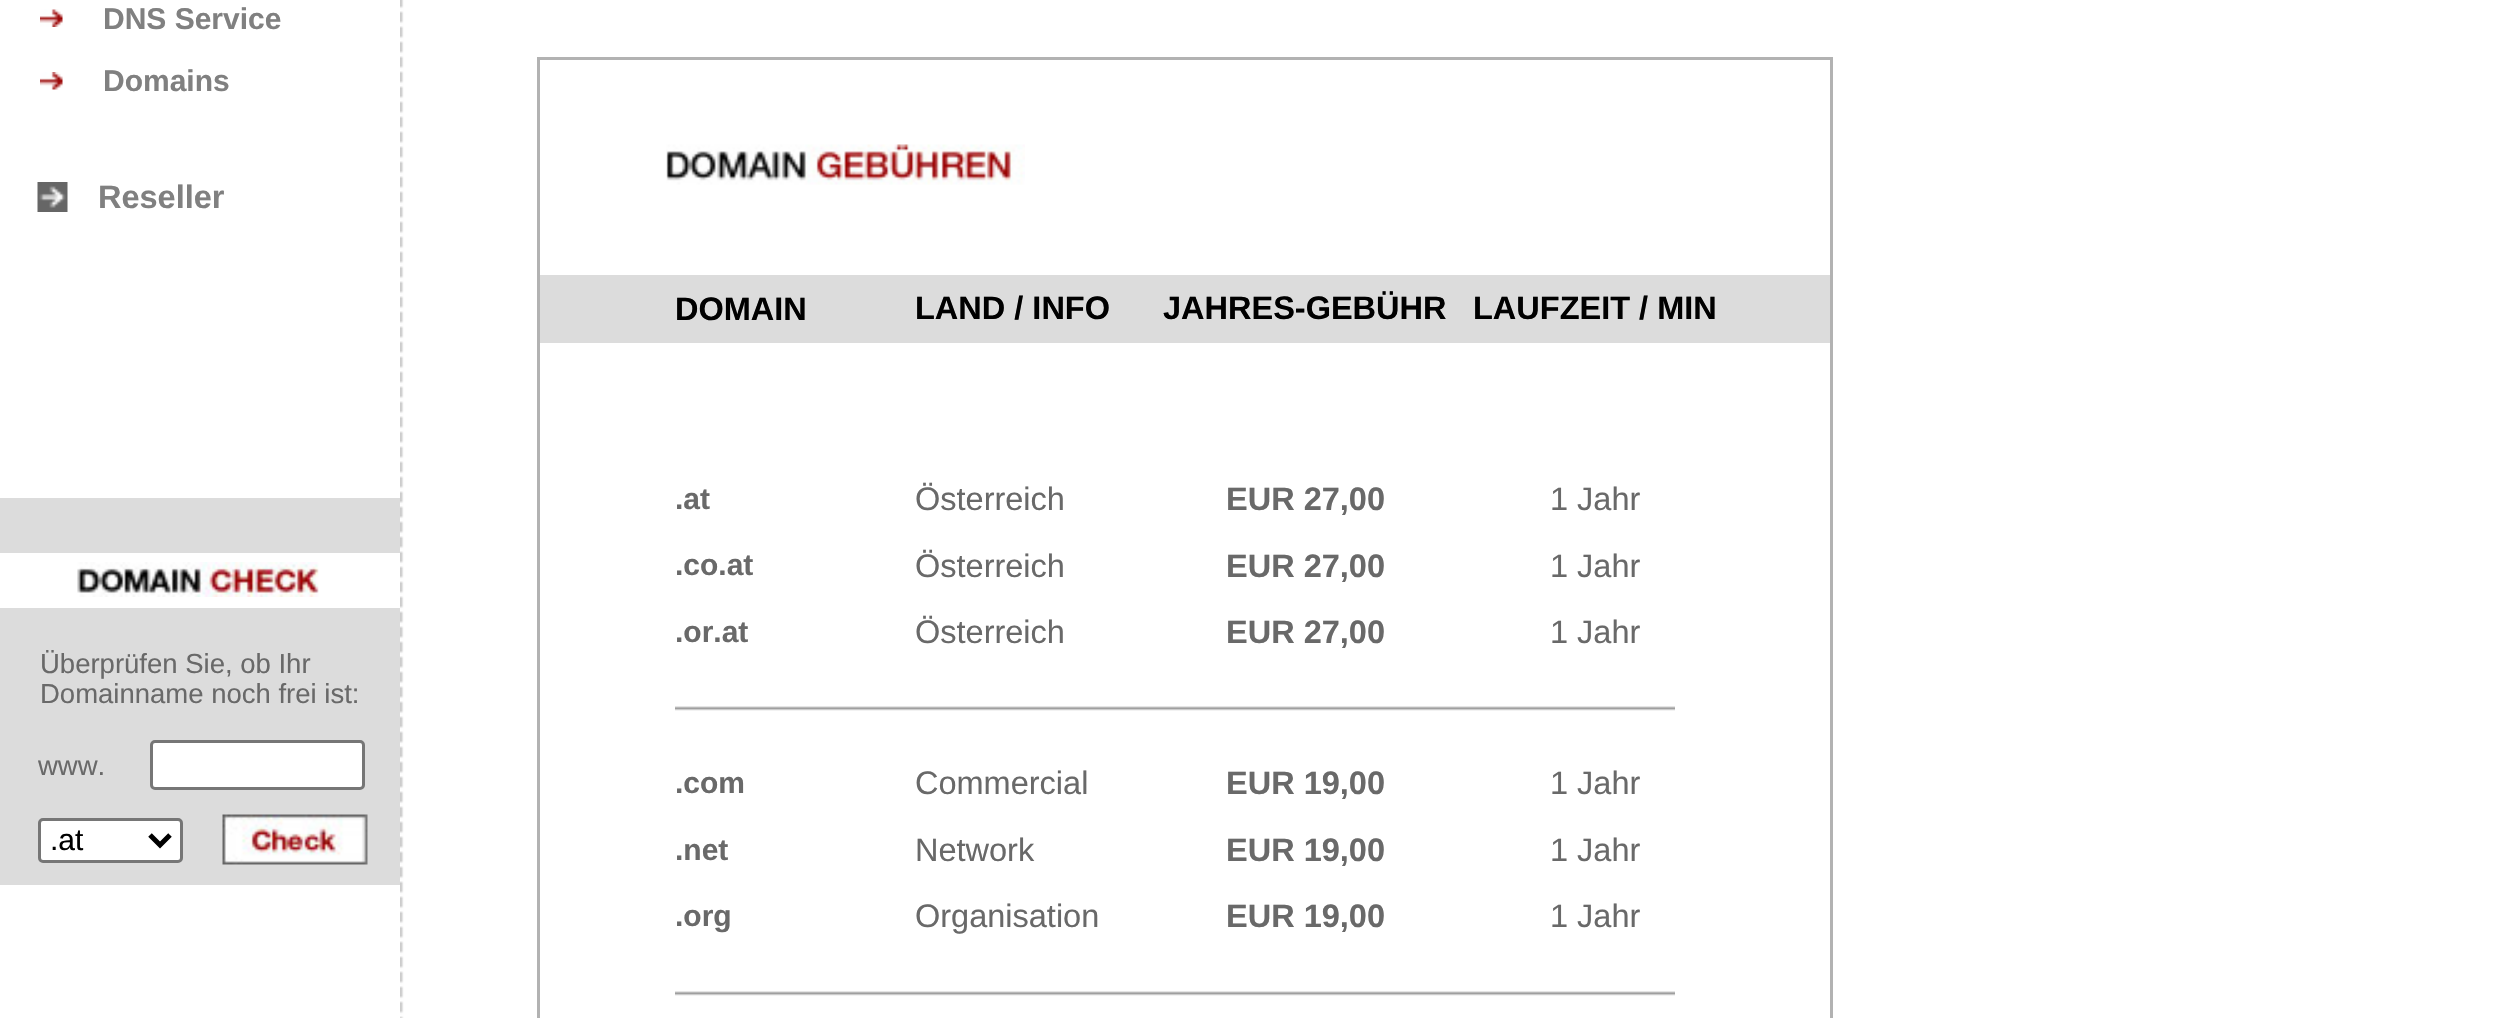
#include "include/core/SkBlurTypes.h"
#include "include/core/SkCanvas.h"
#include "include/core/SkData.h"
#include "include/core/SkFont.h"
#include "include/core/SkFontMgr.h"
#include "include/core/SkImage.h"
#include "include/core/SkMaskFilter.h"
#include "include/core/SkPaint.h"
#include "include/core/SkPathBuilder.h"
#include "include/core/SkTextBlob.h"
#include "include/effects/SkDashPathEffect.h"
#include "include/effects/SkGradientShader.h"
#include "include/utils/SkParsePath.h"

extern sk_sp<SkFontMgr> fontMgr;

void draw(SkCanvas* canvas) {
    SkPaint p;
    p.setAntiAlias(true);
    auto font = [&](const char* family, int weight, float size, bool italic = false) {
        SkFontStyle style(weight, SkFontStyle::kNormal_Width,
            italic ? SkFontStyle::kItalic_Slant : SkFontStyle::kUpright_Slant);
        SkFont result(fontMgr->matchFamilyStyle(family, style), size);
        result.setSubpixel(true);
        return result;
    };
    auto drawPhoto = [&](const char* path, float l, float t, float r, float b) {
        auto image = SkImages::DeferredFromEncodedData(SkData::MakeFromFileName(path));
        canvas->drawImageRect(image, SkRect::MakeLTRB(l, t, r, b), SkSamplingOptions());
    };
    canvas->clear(0xFFFFFFFF);
    drawPhoto("media/1.png", 40, 9, 63, 27);
    auto font1 = font("Liberation Sans", 700, 30);
    p.setColor(0xFF808080);
    canvas->drawString("DNS Service", 103, 29, font1, p);
    drawPhoto("media/2.png", 40, 72, 63, 90);
    canvas->drawString("Domains", 103, 91, font1, p);
    drawPhoto("media/3.png", 37, 182, 68, 212);
    auto font2 = font("Liberation Sans", 700, 32.5f);
    canvas->drawString("Reseller", 98, 208, font2, p);
    p.setColor(0xFFDCDCDC);
    canvas->drawRect(SkRect::MakeLTRB(0, 498, 400, 885), p);
    p.setColor(0xFFFFFFFF);
    canvas->drawRect(SkRect::MakeLTRB(0, 553, 400, 608), p);
    drawPhoto("media/4.png", 77, 562, 319, 597);
    auto font3 = font("Liberation Sans", 400, 27.5f);
    p.setColor(0xFF696969);
    {
        const struct { const char* s; float x, y; } items[] = {
            {"Überprüfen Sie, ob Ihr", 40, 673},
            {"Domainname noch frei ist:", 40, 703},
            {"www.", 38, 775},
        };
        for (auto [s, x, y] : items) {
            canvas->drawString(s, x, y, font3, p);
        }
    }
    p.setColor(0xFFFFFFFF);
    canvas->drawRoundRect(SkRect::MakeLTRB(151.5f, 741.5f, 363.5f, 788.5f), 3.5f, 3.5f, p);
    p.setStyle(SkPaint::kStroke_Style);
    p.setStrokeWidth(3);
    p.setColor(0xFF767676);
    canvas->drawRoundRect(SkRect::MakeLTRB(151.5f, 741.5f, 363.5f, 788.5f), 3.5f, 3.5f, p);
    p.setStyle(SkPaint::kFill_Style);
    p.setColor(0xFFFFFFFF);
    canvas->drawRoundRect(SkRect::MakeLTRB(39.5f, 819.5f, 181.5f, 861.5f), 3.5f, 3.5f, p);
    p.setStyle(SkPaint::kStroke_Style);
    p.setColor(0xFF767676);
    canvas->drawRoundRect(SkRect::MakeLTRB(39.5f, 819.5f, 181.5f, 861.5f), 3.5f, 3.5f, p);
    p.setStrokeWidth(5);
    p.setColor(0xFF000000);
    canvas->drawPath(SkPathBuilder().moveTo(150, 835).lineTo(160, 845).lineTo(170, 835).detach(), p);
    auto font4 = font("Liberation Sans", 400, 30);
    p.setStyle(SkPaint::kFill_Style);
    canvas->drawString(".at", 50, 850, font4, p);
    drawPhoto("media/5.png", 222, 814, 368, 865);
    drawPhoto("media/6.png", 400, 0, 404, 1018);
    {
        const struct { float l, t, r, b; SkColor color; } items[] = {
            {537, 57, 540, 1018, 0xFFB2B2B2},
            {540, 57, 1830, 60, 0xFFB2B2B2},
            {1830, 57, 1833, 1018, 0xFFB2B2B2},
        };
        for (auto [l, t, r, b, color] : items) {
            p.setColor(color);
            canvas->drawRect(SkRect::MakeLTRB(l, t, r, b), p);
        }
    }
    drawPhoto("media/7.png", 666, 144, 1025, 185);
    p.setColor(0xFFDCDCDC);
    canvas->drawRect(SkRect::MakeLTRB(540, 275, 1830, 343), p);
    p.setColor(0xFF000000);
    {
        const struct { const char* s; float x, y; } items[] = {
            {"DOMAIN", 675, 320},
            {"LAND / INFO", 915, 319},
            {"JAHRES-GEBÜHR", 1163, 319},
            {"LAUFZEIT / MIN", 1473, 319},
        };
        for (auto [s, x, y] : items) {
            canvas->drawString(s, x, y, font2, p);
        }
    }
    p.setColor(0xFF696969);
    canvas->drawString(".at", 675, 509, font1, p);
    auto font5 = font("Liberation Sans", 400, 32.5f);
    canvas->drawString("Österreich", 915, 510, font5, p);
    canvas->drawString("EUR 27,00", 1226, 510, font2, p);
    canvas->drawString("1 Jahr", 1550, 510, font5, p);
    canvas->drawString(".co.at", 675, 575, font1, p);
    canvas->drawString("Österreich", 915, 577, font5, p);
    canvas->drawString("EUR 27,00", 1226, 577, font2, p);
    canvas->drawString("1 Jahr", 1550, 577, font5, p);
    canvas->drawString(".or.at", 675, 642, font1, p);
    canvas->drawString("Österreich", 915, 643, font5, p);
    canvas->drawString("EUR 27,00", 1226, 643, font2, p);
    canvas->drawString("1 Jahr", 1550, 643, font5, p);
    drawPhoto("media/8.png", 675, 706, 1675, 711);
    canvas->drawString(".com", 675, 793, font1, p);
    canvas->drawString("Commercial", 915, 794, font5, p);
    canvas->drawString("EUR 19,00", 1226, 794, font2, p);
    canvas->drawString("1 Jahr", 1550, 794, font5, p);
    canvas->drawString(".net", 675, 860, font1, p);
    canvas->drawString("Network", 915, 861, font5, p);
    canvas->drawString("EUR 19,00", 1226, 861, font2, p);
    canvas->drawString("1 Jahr", 1550, 861, font5, p);
    canvas->drawString(".org", 675, 926, font1, p);
    canvas->drawString("Organisation", 915, 927, font5, p);
    canvas->drawString("EUR 19,00", 1226, 927, font2, p);
    canvas->drawString("1 Jahr", 1550, 927, font5, p);
    drawPhoto("media/8.png", 675, 991, 1675, 996);
}
